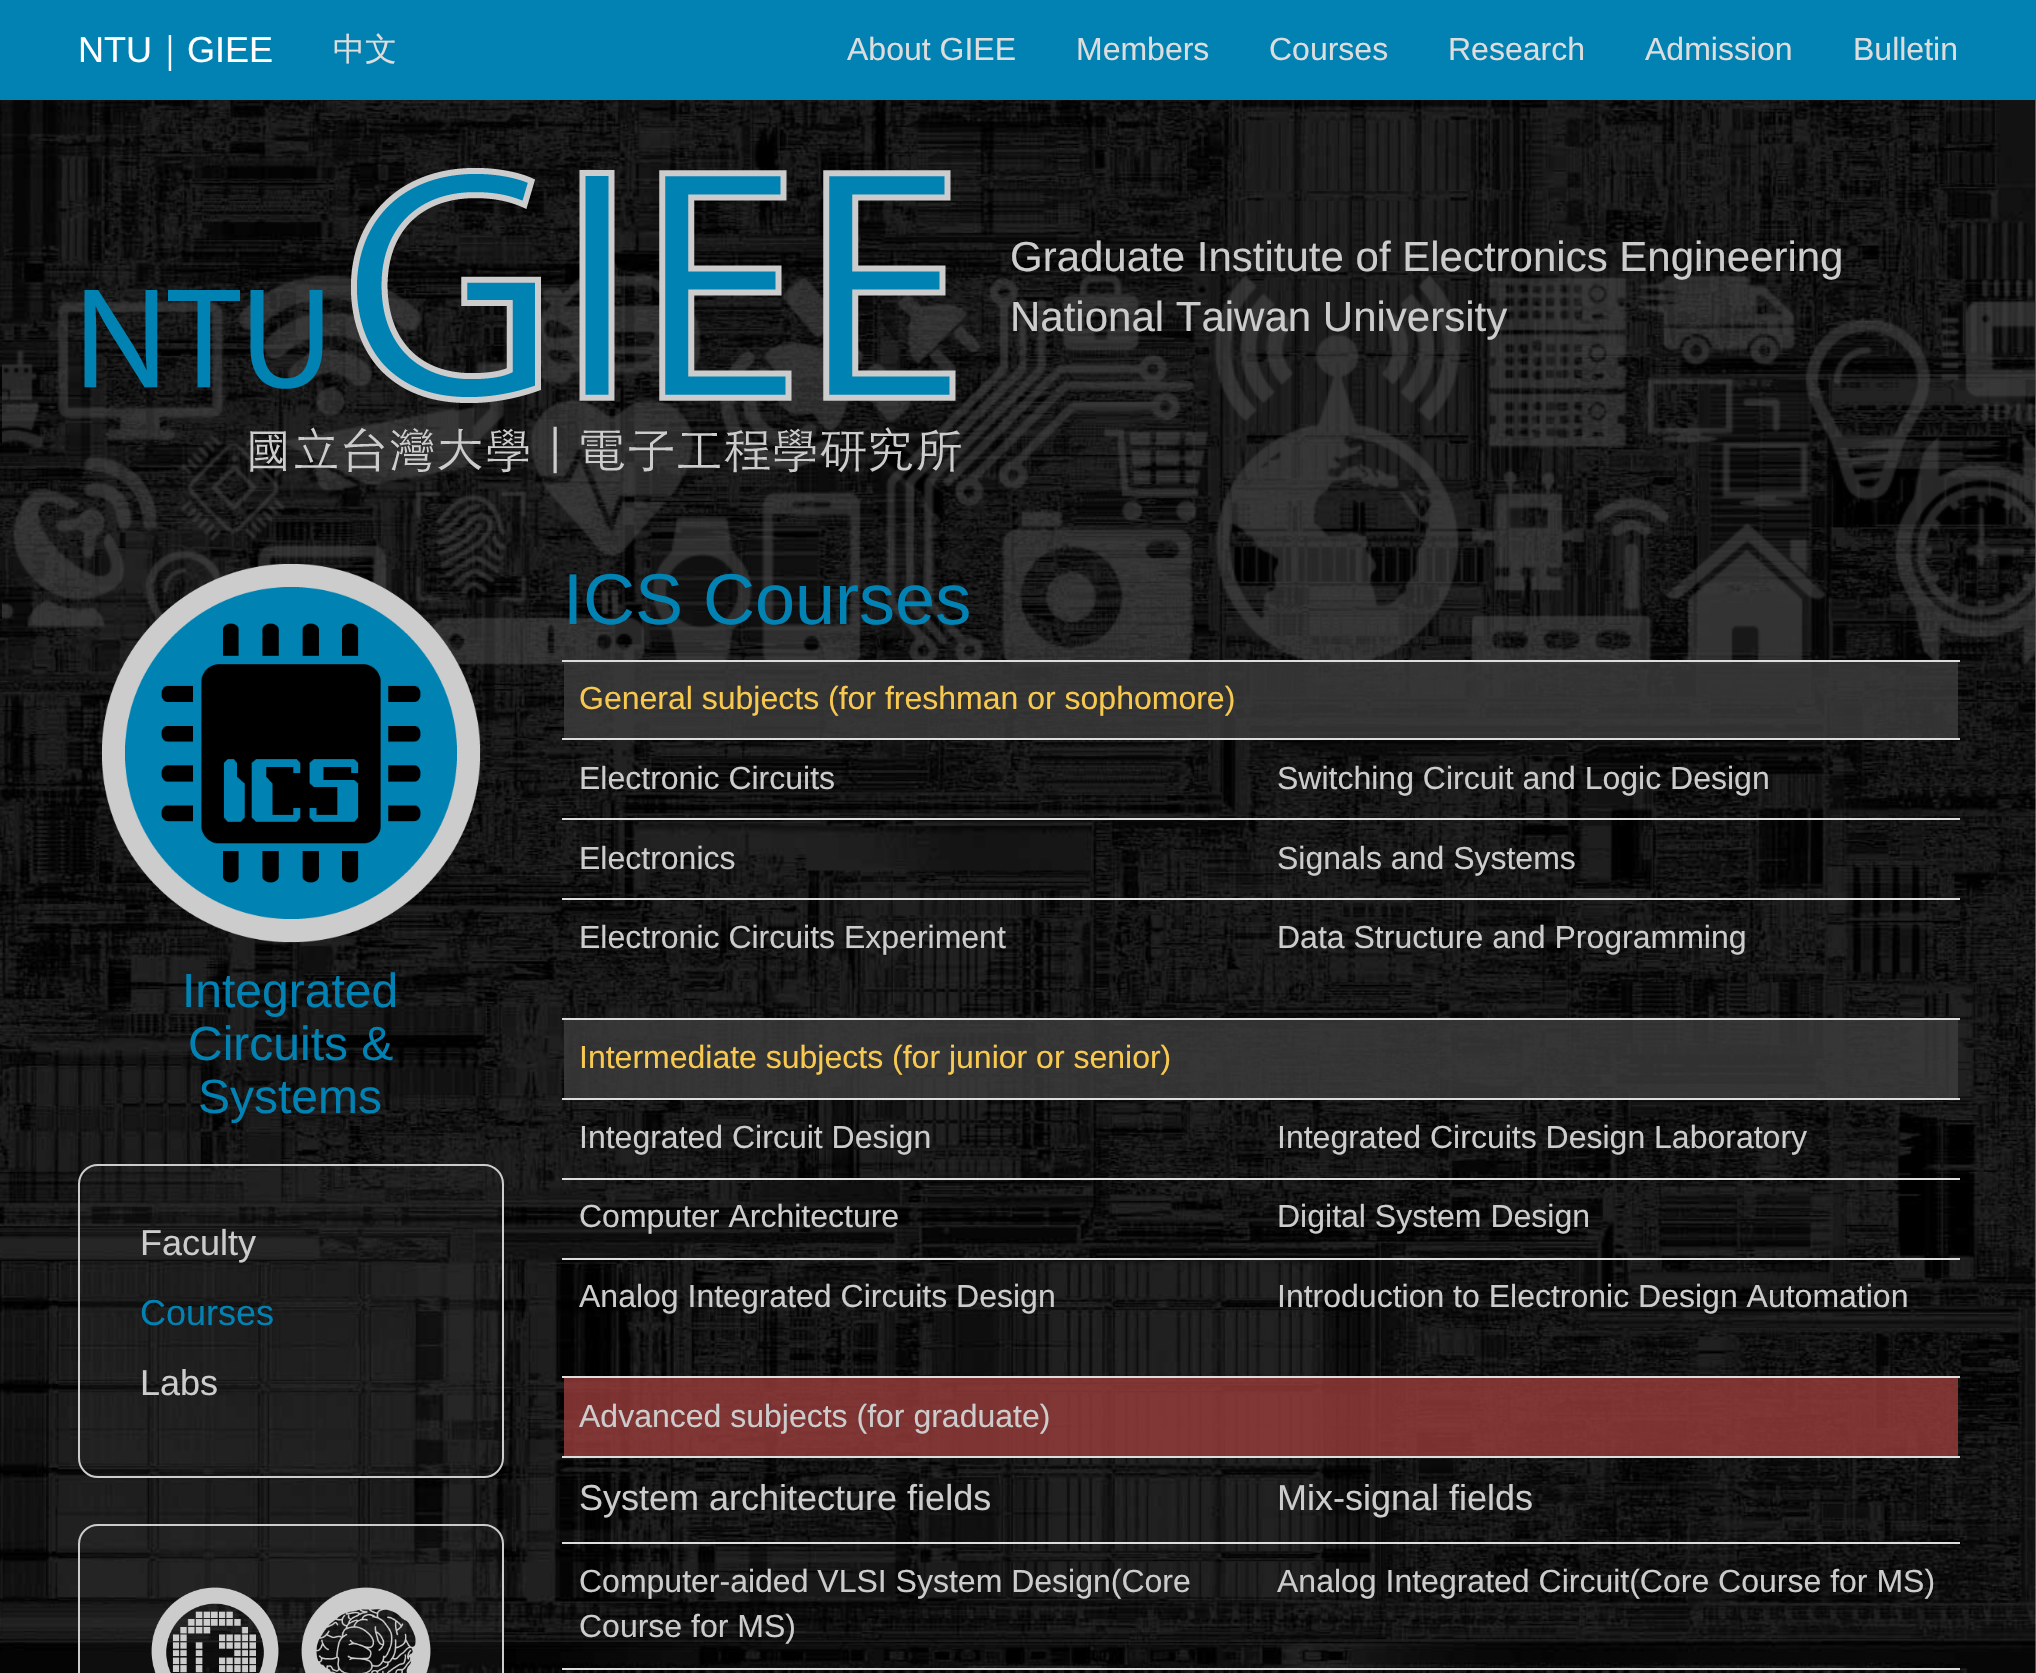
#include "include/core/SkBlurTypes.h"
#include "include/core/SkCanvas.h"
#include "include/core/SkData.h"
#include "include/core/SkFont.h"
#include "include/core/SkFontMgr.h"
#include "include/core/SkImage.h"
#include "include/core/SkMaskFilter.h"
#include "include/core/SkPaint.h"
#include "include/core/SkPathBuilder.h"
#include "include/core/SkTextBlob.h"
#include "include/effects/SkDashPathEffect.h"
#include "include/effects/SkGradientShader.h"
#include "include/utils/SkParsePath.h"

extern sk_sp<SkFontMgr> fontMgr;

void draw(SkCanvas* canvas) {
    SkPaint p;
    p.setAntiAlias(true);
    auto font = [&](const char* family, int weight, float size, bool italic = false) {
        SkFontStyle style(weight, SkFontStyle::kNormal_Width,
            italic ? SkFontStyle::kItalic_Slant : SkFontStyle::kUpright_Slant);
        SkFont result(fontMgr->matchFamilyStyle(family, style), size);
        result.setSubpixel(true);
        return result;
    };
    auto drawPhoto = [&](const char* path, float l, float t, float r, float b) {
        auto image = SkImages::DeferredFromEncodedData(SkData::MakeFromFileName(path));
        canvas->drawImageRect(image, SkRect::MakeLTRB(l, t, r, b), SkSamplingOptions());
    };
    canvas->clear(0xFFFFFFFF);
    drawPhoto("media/1.png", 0, 100, 2036, 1673);
    p.setColor(0xFF0182B3);
    canvas->drawRect(SkRect::MakeLTRB(0, 0, 2036, 100), p);
    auto font1 = font("Liberation Sans", 400, 36);
    p.setColor(0xFFFFFFFF);
    canvas->drawString("NTU", 78, 62, font1, p);
    auto font2 = font("WenQuanYi Zen Hei", 500, 36);
    canvas->drawString("｜", 152, 62, font2, p);
    canvas->drawString("GIEE", 187, 62, font1, p);
    auto font3 = font("WenQuanYi Zen Hei", 500, 32);
    p.setColor(0xFFDDDDDD);
    canvas->drawString("中文", 333, 60, font3, p);
    auto font4 = font("Liberation Sans", 400, 32);
    {
        const struct { const char* s; float x, y; } items[] = {
            {"About GIEE", 847, 60},
            {"Members", 1076, 60},
            {"Courses", 1269, 60},
            {"Research", 1448, 60},
            {"Admission", 1645, 60},
            {"Bulletin", 1853, 60},
        };
        for (auto [s, x, y] : items) {
            canvas->drawString(s, x, y, font4, p);
        }
    }
    drawPhoto("media/3.png", 2, 274, 2036, 666);
    drawPhoto("media/2.png", 84, 168, 961, 474);
    auto font5 = font("Liberation Sans", 400, 42);
    p.setColor(0xFFCCCCCC);
    canvas->drawString("Graduate Institute of Electronics Engineering", 1010, 271, font5, p);
    canvas->drawString("National Taiwan University", 1010, 331, font5, p);
    drawPhoto("media/4.png", 102, 564, 481, 943);
    auto font6 = font("Liberation Sans", 400, 48);
    p.setColor(0xFF0182B3);
    {
        const struct { const char* s; float x, y; } items[] = {
            {"Integrated", 182, 1007},
            {"Circuits &", 188, 1060},
            {"Systems", 198, 1113},
        };
        for (auto [s, x, y] : items) {
            canvas->drawString(s, x, y, font6, p);
        }
    }
    p.setColor(0x33323232);
    canvas->drawRoundRect(SkRect::MakeLTRB(79, 1165, 503, 1477), 19, 19, p);
    p.setStyle(SkPaint::kStroke_Style);
    p.setStrokeWidth(2);
    p.setColor(0xFFCCCCCC);
    canvas->drawRoundRect(SkRect::MakeLTRB(79, 1165, 503, 1477), 19, 19, p);
    p.setStyle(SkPaint::kFill_Style);
    canvas->drawString("Faculty", 140, 1255, font1, p);
    p.setColor(0xFF0182B3);
    canvas->drawString("Courses", 140, 1325, font1, p);
    p.setColor(0xFFCCCCCC);
    canvas->drawString("Labs", 140, 1395, font1, p);
    p.setColor(0x33323232);
    canvas->drawRoundRect(SkRect::MakeLTRB(79, 1525, 503, 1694), 19, 19, p);
    p.setStyle(SkPaint::kStroke_Style);
    p.setColor(0xFFCCCCCC);
    canvas->drawRoundRect(SkRect::MakeLTRB(79, 1525, 503, 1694), 19, 19, p);
    drawPhoto("media/5.png", 151, 1587, 279, 1673);
    drawPhoto("media/6.png", 301, 1587, 431, 1673);
    auto font7 = font("Liberation Sans", 400, 72);
    p.setStyle(SkPaint::kFill_Style);
    p.setColor(0xFF0182B3);
    canvas->drawString("ICS Courses", 563, 624, font7, p);
    p.setColor(0xCC3C3C3C);
    canvas->drawRect(SkRect::MakeLTRB(564, 662, 1958, 738), p);
    p.setColor(0xFFDDDDDD);
    canvas->drawRect(SkRect::MakeLTRB(562, 660, 1960, 662), p);
    p.setColor(0xFFF8C950);
    canvas->drawString("General subjects (for freshman or sophomore)", 579, 709, font4, p);
    p.setColor(0xFFCCCCCC);
    canvas->drawString("Electronic Circuits", 579, 789, font4, p);
    p.setColor(0xFFDDDDDD);
    canvas->drawRect(SkRect::MakeLTRB(562, 738, 1960, 740), p);
    p.setColor(0xFFCCCCCC);
    canvas->drawString("Switching Circuit and Logic Design", 1277, 789, font4, p);
    canvas->drawString("Electronics", 579, 869, font4, p);
    p.setColor(0xFFDDDDDD);
    canvas->drawRect(SkRect::MakeLTRB(562, 818, 1960, 820), p);
    p.setColor(0xFFCCCCCC);
    canvas->drawString("Signals and Systems", 1277, 869, font4, p);
    canvas->drawString("Electronic Circuits Experiment", 579, 948, font4, p);
    p.setColor(0xFFDDDDDD);
    canvas->drawRect(SkRect::MakeLTRB(562, 898, 1960, 900), p);
    p.setColor(0xFFCCCCCC);
    canvas->drawString("Data Structure and Programming", 1277, 948, font4, p);
    p.setColor(0xCC3C3C3C);
    canvas->drawRect(SkRect::MakeLTRB(564, 1020, 1958, 1098), p);
    p.setColor(0xFFDDDDDD);
    canvas->drawRect(SkRect::MakeLTRB(562, 1018, 1960, 1020), p);
    p.setColor(0xFFF8C950);
    canvas->drawString("Intermediate subjects (for junior or senior)", 579, 1068, font4, p);
    p.setColor(0xFFCCCCCC);
    canvas->drawString("Integrated Circuit Design", 579, 1148, font4, p);
    p.setColor(0xFFDDDDDD);
    canvas->drawRect(SkRect::MakeLTRB(562, 1098, 1960, 1100), p);
    p.setColor(0xFFCCCCCC);
    canvas->drawString("Integrated Circuits Design Laboratory", 1277, 1148, font4, p);
    canvas->drawString("Computer Architecture", 579, 1227, font4, p);
    p.setColor(0xFFDDDDDD);
    canvas->drawRect(SkRect::MakeLTRB(562, 1178, 1960, 1180), p);
    p.setColor(0xFFCCCCCC);
    canvas->drawString("Digital System Design", 1277, 1227, font4, p);
    canvas->drawString("Analog Integrated Circuits Design", 579, 1307, font4, p);
    p.setColor(0xFFDDDDDD);
    canvas->drawRect(SkRect::MakeLTRB(562, 1258, 1960, 1260), p);
    p.setColor(0xFFCCCCCC);
    canvas->drawString("Introduction to Electronic Design Automation", 1277, 1307, font4, p);
    p.setColor(0xCC9A3C3C);
    canvas->drawRect(SkRect::MakeLTRB(564, 1378, 1958, 1456), p);
    p.setColor(0xFFDDDDDD);
    canvas->drawRect(SkRect::MakeLTRB(562, 1376, 1960, 1378), p);
    p.setColor(0xFFCCCCCC);
    canvas->drawString("Advanced subjects (for graduate)", 579, 1427, font4, p);
    canvas->drawString("System architecture fields", 579, 1510, font1, p);
    p.setColor(0xFFDDDDDD);
    canvas->drawRect(SkRect::MakeLTRB(562, 1456, 1960, 1458), p);
    p.setColor(0xFFCCCCCC);
    canvas->drawString("Mix-signal fields", 1277, 1510, font1, p);
    canvas->drawString("Computer-aided VLSI System Design(Core", 579, 1592, font4, p);
    canvas->drawString("Course for MS)", 579, 1637, font4, p);
    p.setColor(0xFFDDDDDD);
    canvas->drawRect(SkRect::MakeLTRB(562, 1542, 1960, 1544), p);
    p.setColor(0xFFCCCCCC);
    canvas->drawString("Analog Integrated Circuit(Core Course for MS)", 1277, 1592, font4, p);
    p.setColor(0xFFDDDDDD);
    canvas->drawRect(SkRect::MakeLTRB(562, 1668, 1960, 1670), p);
}
